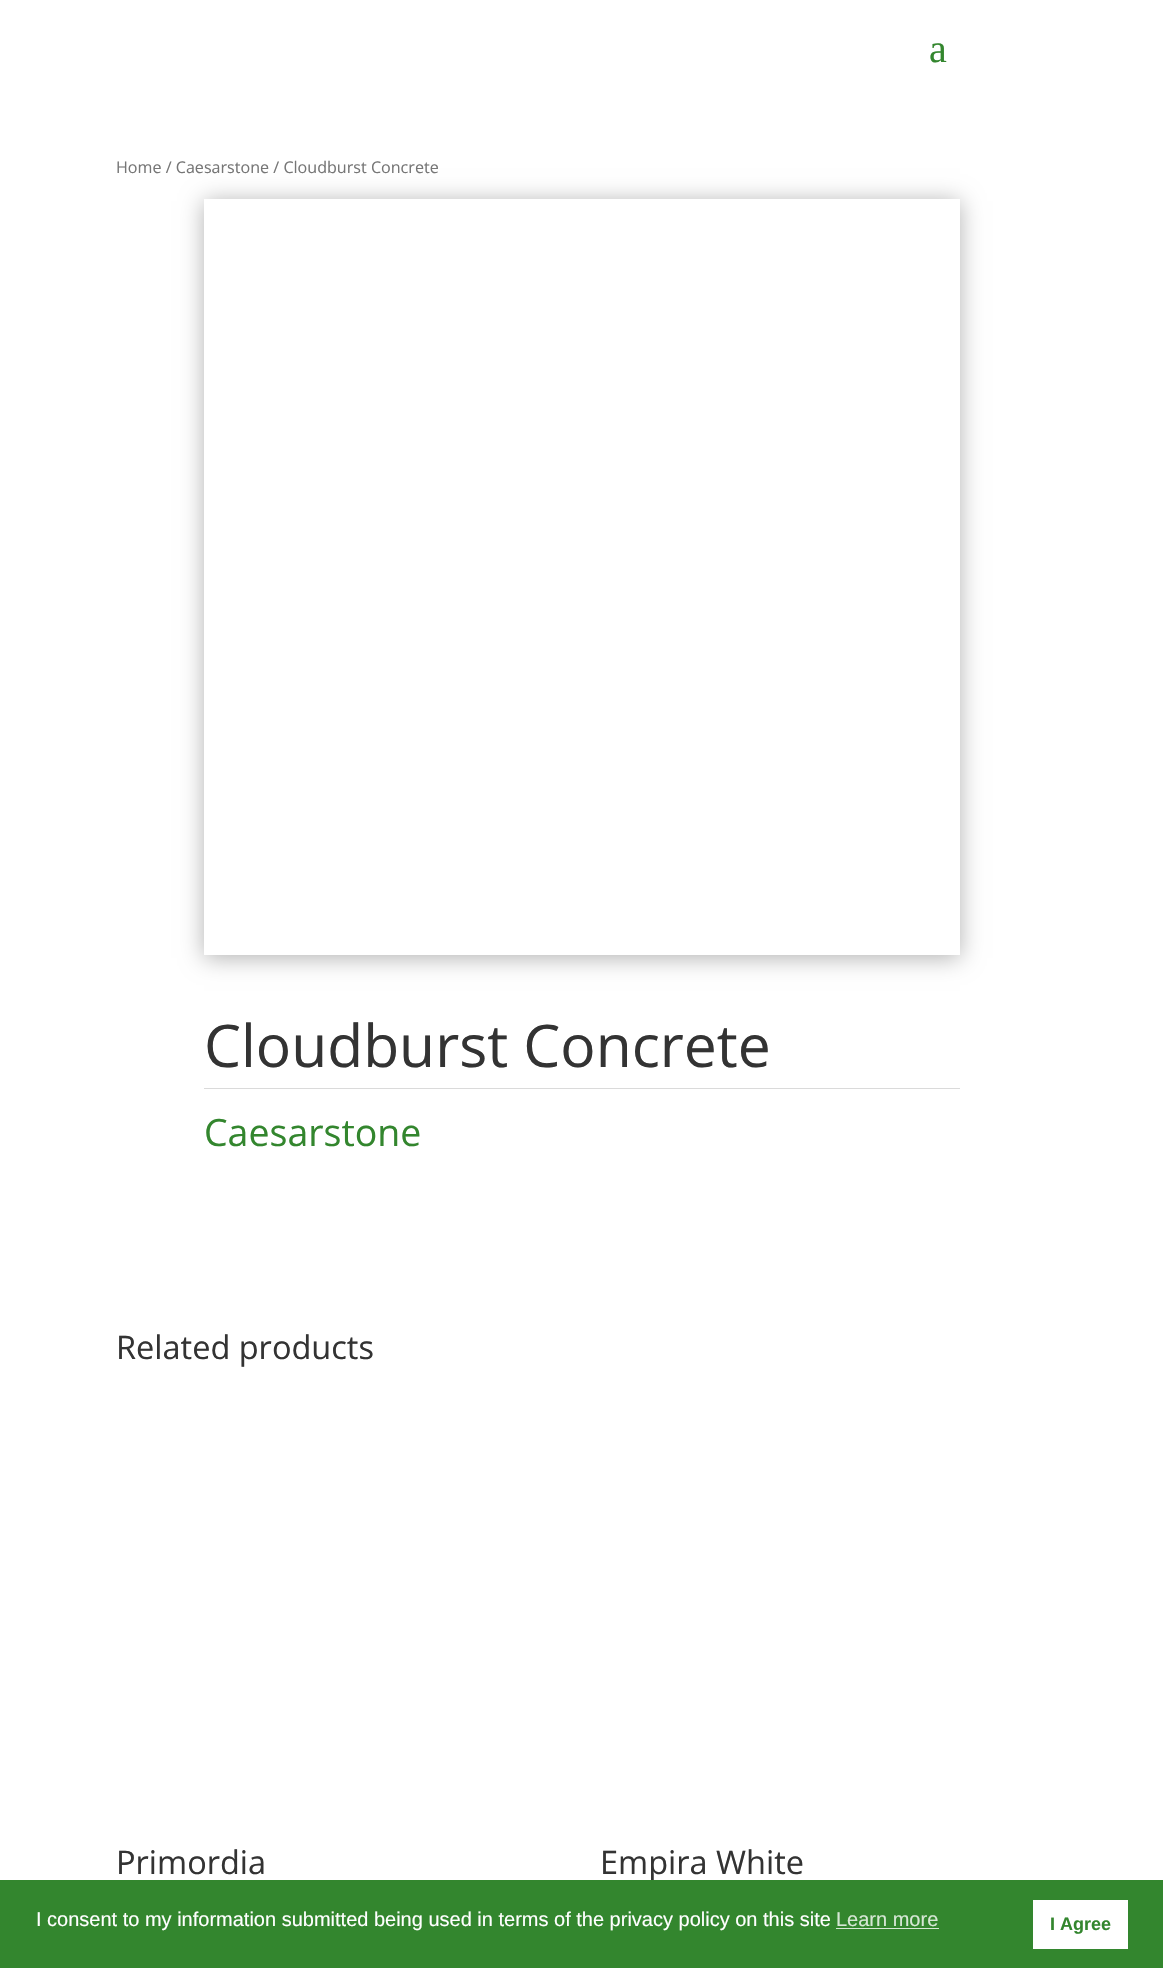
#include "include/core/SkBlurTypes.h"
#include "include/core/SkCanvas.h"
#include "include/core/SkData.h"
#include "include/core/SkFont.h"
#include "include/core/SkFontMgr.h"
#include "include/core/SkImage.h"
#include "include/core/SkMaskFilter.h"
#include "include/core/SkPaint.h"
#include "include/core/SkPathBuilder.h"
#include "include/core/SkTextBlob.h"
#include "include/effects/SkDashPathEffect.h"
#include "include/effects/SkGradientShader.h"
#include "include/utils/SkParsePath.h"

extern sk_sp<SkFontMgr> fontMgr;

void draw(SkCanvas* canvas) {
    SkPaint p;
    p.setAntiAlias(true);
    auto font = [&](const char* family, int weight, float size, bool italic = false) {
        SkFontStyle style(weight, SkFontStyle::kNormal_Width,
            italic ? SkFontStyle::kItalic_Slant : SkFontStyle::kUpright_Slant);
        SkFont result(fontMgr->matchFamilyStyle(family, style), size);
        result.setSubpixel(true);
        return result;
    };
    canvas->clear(0xFFFFFFFF);
    auto font1 = font("Liberation Serif", 400, 40);
    p.setColor(0xFF33862E);
    canvas->drawString("a", 929, 62, font1, p);
    auto font2 = font("Open Sans", 400, 16.1f);
    p.setColor(0xFF767676);
    canvas->drawString("Home / Caesarstone / Cloudburst Concrete", 116, 173, font2, p);
    canvas->save();
    canvas->clipPath(SkPathBuilder(SkPathFillType::kEvenOdd).moveTo(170, 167).lineTo(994, 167).lineTo(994, 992).lineTo(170, 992).close().moveTo(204, 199).lineTo(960, 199).lineTo(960, 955).lineTo(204, 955).close().detach(), true);
    p.setColor(0x4D000000);
    p.setMaskFilter(SkMaskFilter::MakeBlur(kNormal_SkBlurStyle, 11));
    canvas->drawRect(SkRect::MakeLTRB(204, 201, 960, 958), p);
    p.setMaskFilter(nullptr);
    canvas->restore();
    auto font3 = font("Open Sans", 400, 58.75f);
    p.setColor(0xFF333333);
    canvas->drawString("Cloudburst Concrete", 204, 1067, font3, p);
    p.setColor(0xFFDADADA);
    canvas->drawRect(SkRect::MakeLTRB(204, 1088, 960, 1089), p);
    auto font4 = font("Open Sans", 400, 37.5f);
    p.setColor(0xFF33862E);
    canvas->drawString("Caesarstone", 204, 1146, font4, p);
    auto font5 = font("Open Sans", 400, 32.5f);
    p.setColor(0xFF333333);
    {
        const struct { const char* s; float x, y; } items[] = {
            {"Related products", 116, 1359},
            {"Primordia", 116, 1874},
            {"Empira White", 600, 1874},
        };
        for (auto [s, x, y] : items) {
            canvas->drawString(s, x, y, font5, p);
        }
    }
    p.setColor(0xFF33862E);
    canvas->drawRect(SkRect::MakeLTRB(0, 1880, 1163, 1968), p);
    auto font6 = font("Liberation Sans", 400, 20);
    p.setColor(0xFFFFFFFF);
    canvas->drawString("I consent to my information submitted being used in terms of the privacy policy on this site", 36, 1926, font6, p);
    p.setColor(0xFFD6E7D5);
    canvas->drawString("Learn more", 836, 1926, font6, p);
    canvas->drawRect(SkRect::MakeLTRB(836, 1928, 939, 1929), p);
    p.setColor(0xFFFFFFFF);
    canvas->drawRect(SkRect::MakeLTRB(1033, 1900, 1128, 1949), p);
    auto font7 = font("Liberation Sans", 700, 18);
    p.setColor(0xFF33862E);
    canvas->drawString("I Agree", 1050, 1930, font7, p);
}
